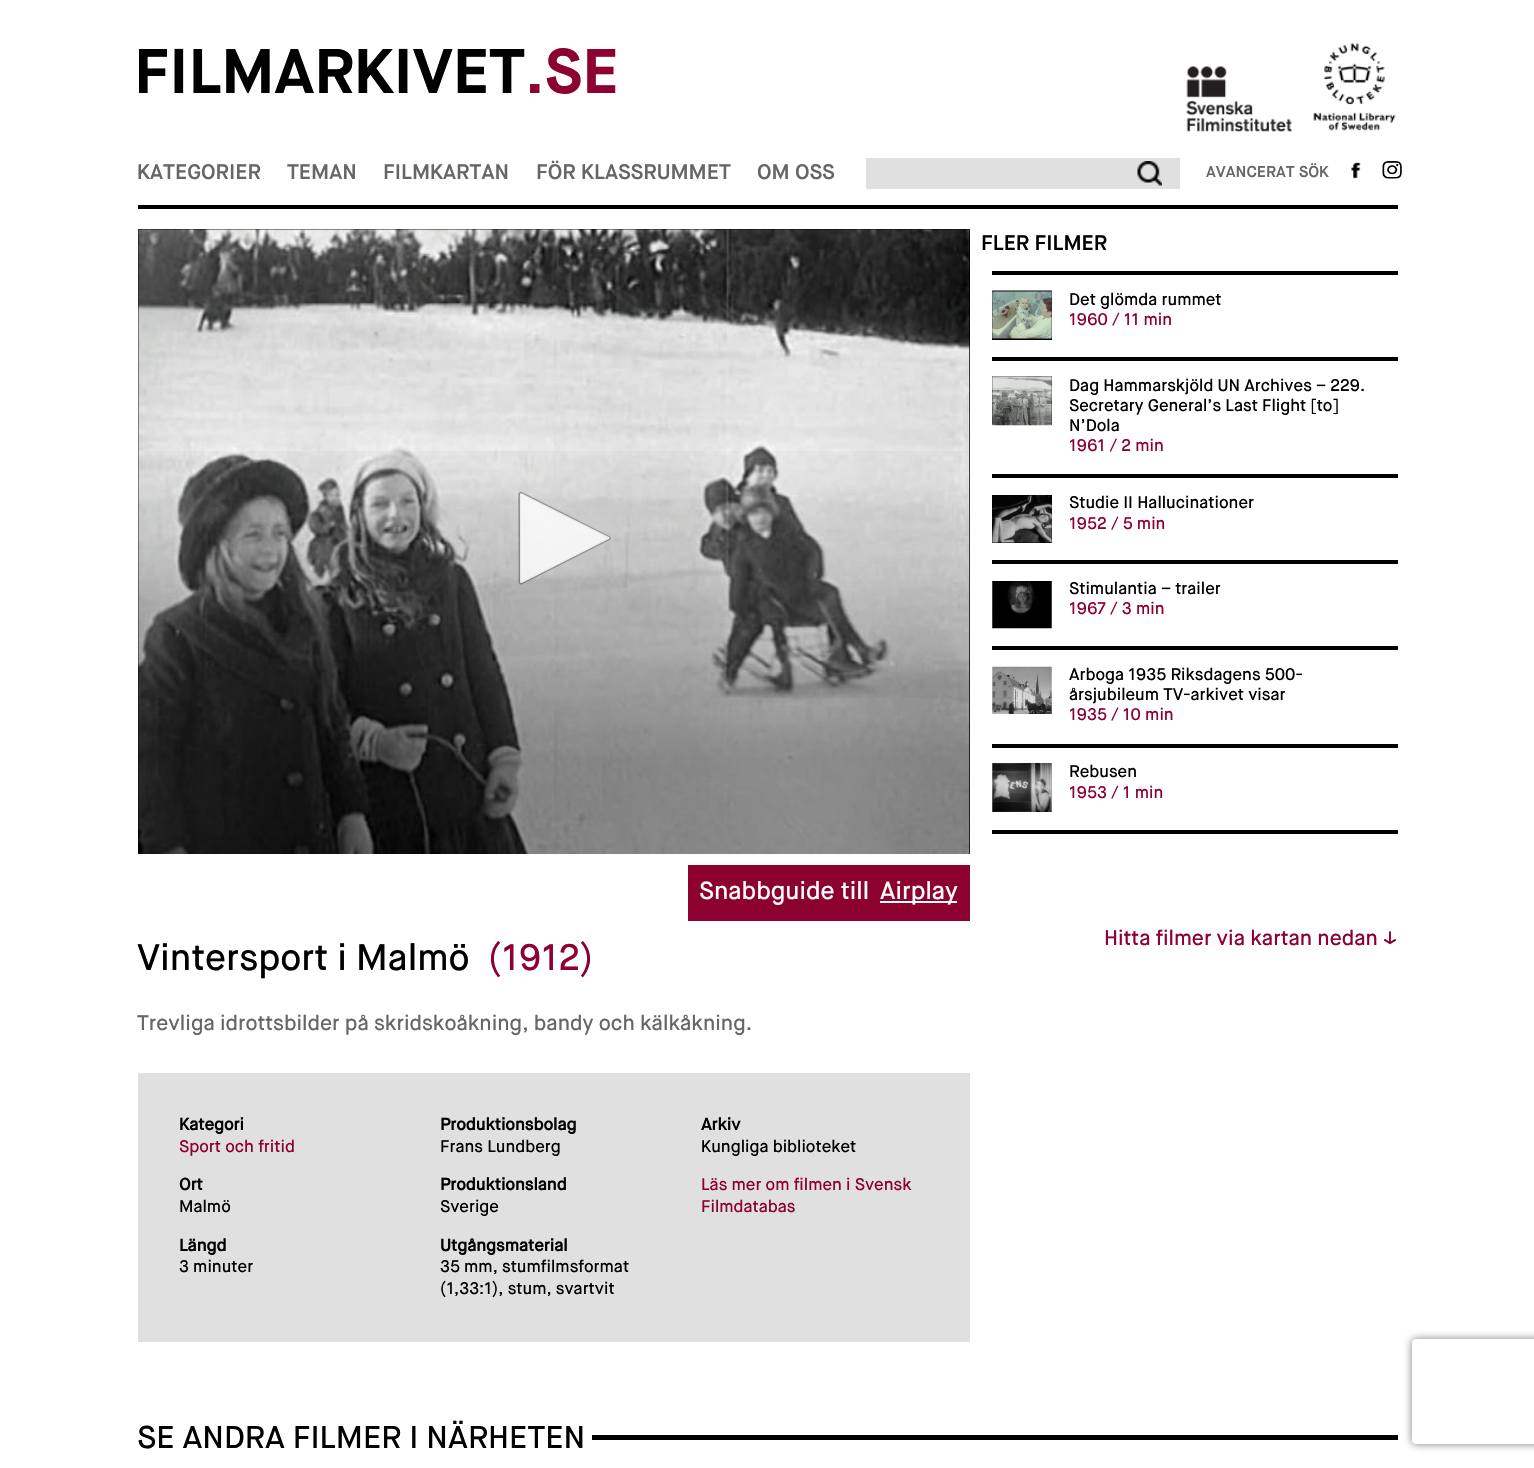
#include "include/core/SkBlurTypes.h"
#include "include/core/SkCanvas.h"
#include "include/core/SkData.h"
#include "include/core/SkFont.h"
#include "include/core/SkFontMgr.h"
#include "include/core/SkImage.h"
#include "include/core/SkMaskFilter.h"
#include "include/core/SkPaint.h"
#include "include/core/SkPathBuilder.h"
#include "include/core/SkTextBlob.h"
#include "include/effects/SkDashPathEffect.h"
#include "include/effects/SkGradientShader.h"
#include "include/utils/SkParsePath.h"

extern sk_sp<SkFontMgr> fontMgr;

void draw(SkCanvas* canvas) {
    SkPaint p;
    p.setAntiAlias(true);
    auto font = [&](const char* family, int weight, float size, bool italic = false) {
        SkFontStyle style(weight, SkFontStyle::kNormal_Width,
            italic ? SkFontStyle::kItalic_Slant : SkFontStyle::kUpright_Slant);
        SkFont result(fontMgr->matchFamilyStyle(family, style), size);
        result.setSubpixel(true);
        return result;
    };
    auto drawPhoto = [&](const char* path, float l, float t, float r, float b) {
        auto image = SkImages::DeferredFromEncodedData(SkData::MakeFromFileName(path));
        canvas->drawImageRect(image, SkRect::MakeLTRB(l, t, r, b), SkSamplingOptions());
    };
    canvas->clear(0xFFFFFFFF);
    p.setColor(0xFF000000);
    canvas->drawRect(SkRect::MakeLTRB(138, 205, 1398, 209), p);
    auto font1 = font("Maison Neue", 700, 63);
    canvas->drawString("FILMARKIVET", 134, 93, font1, p);
    p.setColor(0xFF8D012F);
    canvas->drawString(".SE", 525, 93, font1, p);
    drawPhoto("media/1.png", 1186, 66, 1292, 132);
    drawPhoto("media/2.png", 1313, 43, 1396, 131);
    auto font2 = font("Maison Neue", 600, 21);
    p.setColor(0xFF666666);
    {
        const struct { const char* s; float x, y; } items[] = {
            {"KATEGORIER", 137, 179},
            {"TEMAN", 287, 179},
            {"FILMKARTAN", 383, 179},
            {"FÖR KLASSRUMMET", 536, 179},
            {"OM OSS", 757, 179},
        };
        for (auto [s, x, y] : items) {
            canvas->drawString(s, x, y, font2, p);
        }
    }
    p.setColor(0xFFE0E0E0);
    canvas->drawRect(SkRect::MakeLTRB(866, 158, 1180, 189), p);
    drawPhoto("media/3.png", 1137, 161, 1162, 186);
    auto font3 = font("Maison Neue", 600, 15.75f);
    p.setColor(0xFF666666);
    canvas->drawString("AVANCERAT SÖK", 1206, 177, font3, p);
    drawPhoto("media/4.png", 1351, 162, 1361, 179);
    drawPhoto("media/5.png", 1382, 161, 1402, 179);
    p.setColor(0xFF000000);
    canvas->drawRect(SkRect::MakeLTRB(992, 271, 1398, 275), p);
    canvas->drawString("FLER FILMER", 981, 250, font2, p);
    canvas->drawRect(SkRect::MakeLTRB(992, 357, 1398, 361), p);
    canvas->drawRect(SkRect::MakeLTRB(992, 291, 1052, 340), p);
    drawPhoto("media/6.png", 992, 290, 1052, 339);
    auto font4 = font("Maison Neue", 500, 16.75f);
    canvas->drawString("Det glömda rummet", 1069, 305, font4, p);
    p.setColor(0xFF8D012F);
    canvas->drawString("1960 / 11 min", 1069, 325, font4, p);
    p.setColor(0xFF000000);
    canvas->drawRect(SkRect::MakeLTRB(992, 474, 1398, 478), p);
    canvas->drawRect(SkRect::MakeLTRB(992, 376, 1052, 425), p);
    drawPhoto("media/7.png", 992, 376, 1052, 426);
    {
        const struct { const char* s; float x, y; } items[] = {
            {"Dag Hammarskjöld UN Archives – 229.", 1069, 391},
            {"Secretary General’s Last Flight [to]", 1069, 411},
            {"N’Dola", 1069, 431},
        };
        for (auto [s, x, y] : items) {
            canvas->drawString(s, x, y, font4, p);
        }
    }
    p.setColor(0xFF8D012F);
    canvas->drawString("1961 / 2 min", 1069, 451, font4, p);
    p.setColor(0xFF000000);
    canvas->drawRect(SkRect::MakeLTRB(992, 560, 1398, 564), p);
    canvas->drawRect(SkRect::MakeLTRB(992, 495, 1052, 543), p);
    drawPhoto("media/8.png", 992, 495, 1052, 543);
    canvas->drawString("Studie II Hallucinationer", 1069, 508, font4, p);
    p.setColor(0xFF8D012F);
    canvas->drawString("1952 / 5 min", 1069, 529, font4, p);
    p.setColor(0xFF000000);
    canvas->drawRect(SkRect::MakeLTRB(992, 646, 1398, 650), p);
    drawPhoto("media/9.png", 992, 581, 1052, 629);
    canvas->drawString("Stimulantia – trailer", 1069, 594, font4, p);
    p.setColor(0xFF8D012F);
    canvas->drawString("1967 / 3 min", 1069, 614, font4, p);
    p.setColor(0xFF000000);
    canvas->drawRect(SkRect::MakeLTRB(992, 744, 1398, 748), p);
    drawPhoto("media/10.png", 992, 666, 1052, 714);
    canvas->drawString("Arboga 1935 Riksdagens 500-", 1069, 680, font4, p);
    canvas->drawString("årsjubileum TV-arkivet visar", 1069, 700, font4, p);
    p.setColor(0xFF8D012F);
    canvas->drawString("1935 / 10 min", 1069, 720, font4, p);
    p.setColor(0xFF000000);
    canvas->drawRect(SkRect::MakeLTRB(992, 830, 1398, 834), p);
    drawPhoto("media/11.png", 992, 763, 1052, 812);
    canvas->drawString("Rebusen", 1069, 777, font4, p);
    p.setColor(0xFF8D012F);
    canvas->drawString("1953 / 1 min", 1069, 798, font4, p);
    p.setColor(0xFF000000);
    canvas->drawRect(SkRect::MakeLTRB(138, 229, 970, 854), p);
    drawPhoto("media/12.png", 138, 229, 970, 854);
    {
        const SkColor colors[] = {0x00000000, 0x66000000, 0x66000000};
        const float stops[] = {0, 0.77f, 1};
        const SkPoint ends[] = {{554, 434}, {554, 854}};
        p.setShader(SkGradientShader::MakeLinear(ends, colors, stops, 3, SkTileMode::kClamp));
        p.setAlpha(255);
    }
    canvas->drawRect(SkRect::MakeLTRB(138, 451, 970, 854), p);
    p.setStyle(SkPaint::kStroke_Style);
    p.setStrokeWidth(2.5f);
    p.setShader(nullptr);
    p.setColor(0x4D000000);
    canvas->drawPath(SkPathBuilder().moveTo(522, 583).cubicTo(521, 583.5f, 520, 583, 520, 582.5f).lineTo(519.5f, 494).lineTo(521, 493).lineTo(608.5f, 537).cubicTo(609.5f, 537.5f, 610, 538.5f, 609, 539).close().detach(), p);
    p.setStyle(SkPaint::kFill_Style);
    p.setColor(0xCCFFFFFF);
    canvas->drawPath(SkPathBuilder().moveTo(522, 583).cubicTo(521, 583, 520, 583, 520, 582).lineTo(520, 494).lineTo(521, 493).lineTo(609, 537).cubicTo(609, 537, 610, 538, 609, 539).close().detach(), p);
    p.setColor(0xFF8D012F);
    canvas->drawRect(SkRect::MakeLTRB(688, 865, 970, 921), p);
    auto font5 = font("Maison Neue", 500, 24.5f);
    p.setColor(0xFFFFFFFF);
    canvas->drawString("Snabbguide till", 699, 899, font5, p);
    canvas->drawRect(SkRect::MakeLTRB(880, 901, 957, 903), p);
    canvas->drawString("Airplay", 880, 899, font5, p);
    auto font6 = font("Maison Neue", 500, 21);
    p.setColor(0xFF8D012F);
    canvas->drawString("Hitta filmer via kartan nedan ↓", 1104, 945, font6, p);
    auto font7 = font("Maison Neue", 500, 36.75f);
    p.setColor(0xFF000000);
    canvas->drawString("Vintersport i Malmö", 137, 970, font7, p);
    p.setColor(0xFF8D012F);
    canvas->drawString("(1912)", 488, 970, font7, p);
    p.setColor(0xFF666666);
    canvas->drawString("Trevliga idrottsbilder på skridskoåkning, bandy och kälkåkning.", 137, 1030, font6, p);
    p.setColor(0xFFE0E0E0);
    canvas->drawRect(SkRect::MakeLTRB(138, 1073, 970, 1342), p);
    auto font8 = font("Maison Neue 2", 700, 16.75f);
    p.setColor(0xFF000000);
    canvas->drawString("Kategori", 179, 1130, font8, p);
    p.setColor(0xFF8D012F);
    canvas->drawString("Sport och fritid", 179, 1152, font4, p);
    p.setColor(0xFF000000);
    canvas->drawString("Produktionsbolag", 440, 1130, font8, p);
    canvas->drawString("Frans Lundberg", 440, 1152, font4, p);
    canvas->drawString("Arkiv", 701, 1130, font8, p);
    canvas->drawString("Kungliga biblioteket", 701, 1152, font4, p);
    canvas->drawString("Ort", 179, 1190, font8, p);
    canvas->drawString("Malmö", 179, 1212, font4, p);
    canvas->drawString("Produktionsland", 440, 1190, font8, p);
    canvas->drawString("Sverige", 440, 1212, font4, p);
    p.setColor(0xFF8D012F);
    canvas->drawString("Läs mer om filmen i Svensk", 701, 1190, font4, p);
    canvas->drawString("Filmdatabas", 701, 1212, font4, p);
    p.setColor(0xFF000000);
    canvas->drawString("Längd", 179, 1251, font8, p);
    canvas->drawString("3 minuter", 179, 1272, font4, p);
    canvas->drawString("Utgångsmaterial", 440, 1251, font8, p);
    canvas->drawString("35 mm, stumfilmsformat", 440, 1272, font4, p);
    canvas->drawString("(1,33:1), stum, svartvit", 440, 1294, font4, p);
    auto font9 = font("Maison Neue", 500, 31.5f);
    canvas->drawString("SE ANDRA FILMER I NÄRHETEN", 137, 1448, font9, p);
    canvas->drawRect(SkRect::MakeLTRB(592, 1435, 1398, 1440), p);
    canvas->save();
    canvas->clipPath(SkPathBuilder(SkPathFillType::kEvenOdd).moveTo(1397, 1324).lineTo(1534, 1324).lineTo(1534, 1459).lineTo(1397, 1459).close().moveTo(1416, 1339).lineTo(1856, 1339).cubicTo(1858, 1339, 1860, 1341, 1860, 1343).lineTo(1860, 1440).cubicTo(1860, 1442, 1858, 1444, 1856, 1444).lineTo(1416, 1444).cubicTo(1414, 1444, 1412, 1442, 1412, 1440).lineTo(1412, 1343).cubicTo(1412, 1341, 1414, 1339, 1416, 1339).close().detach(), true);
    p.setColor(0xFF808080);
    p.setMaskFilter(SkMaskFilter::MakeBlur(kNormal_SkBlurStyle, 4.5f));
    canvas->drawRoundRect(SkRect::MakeLTRB(1412, 1339, 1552, 1444), 4, 4, p);
    p.setMaskFilter(nullptr);
    canvas->restore();
}
